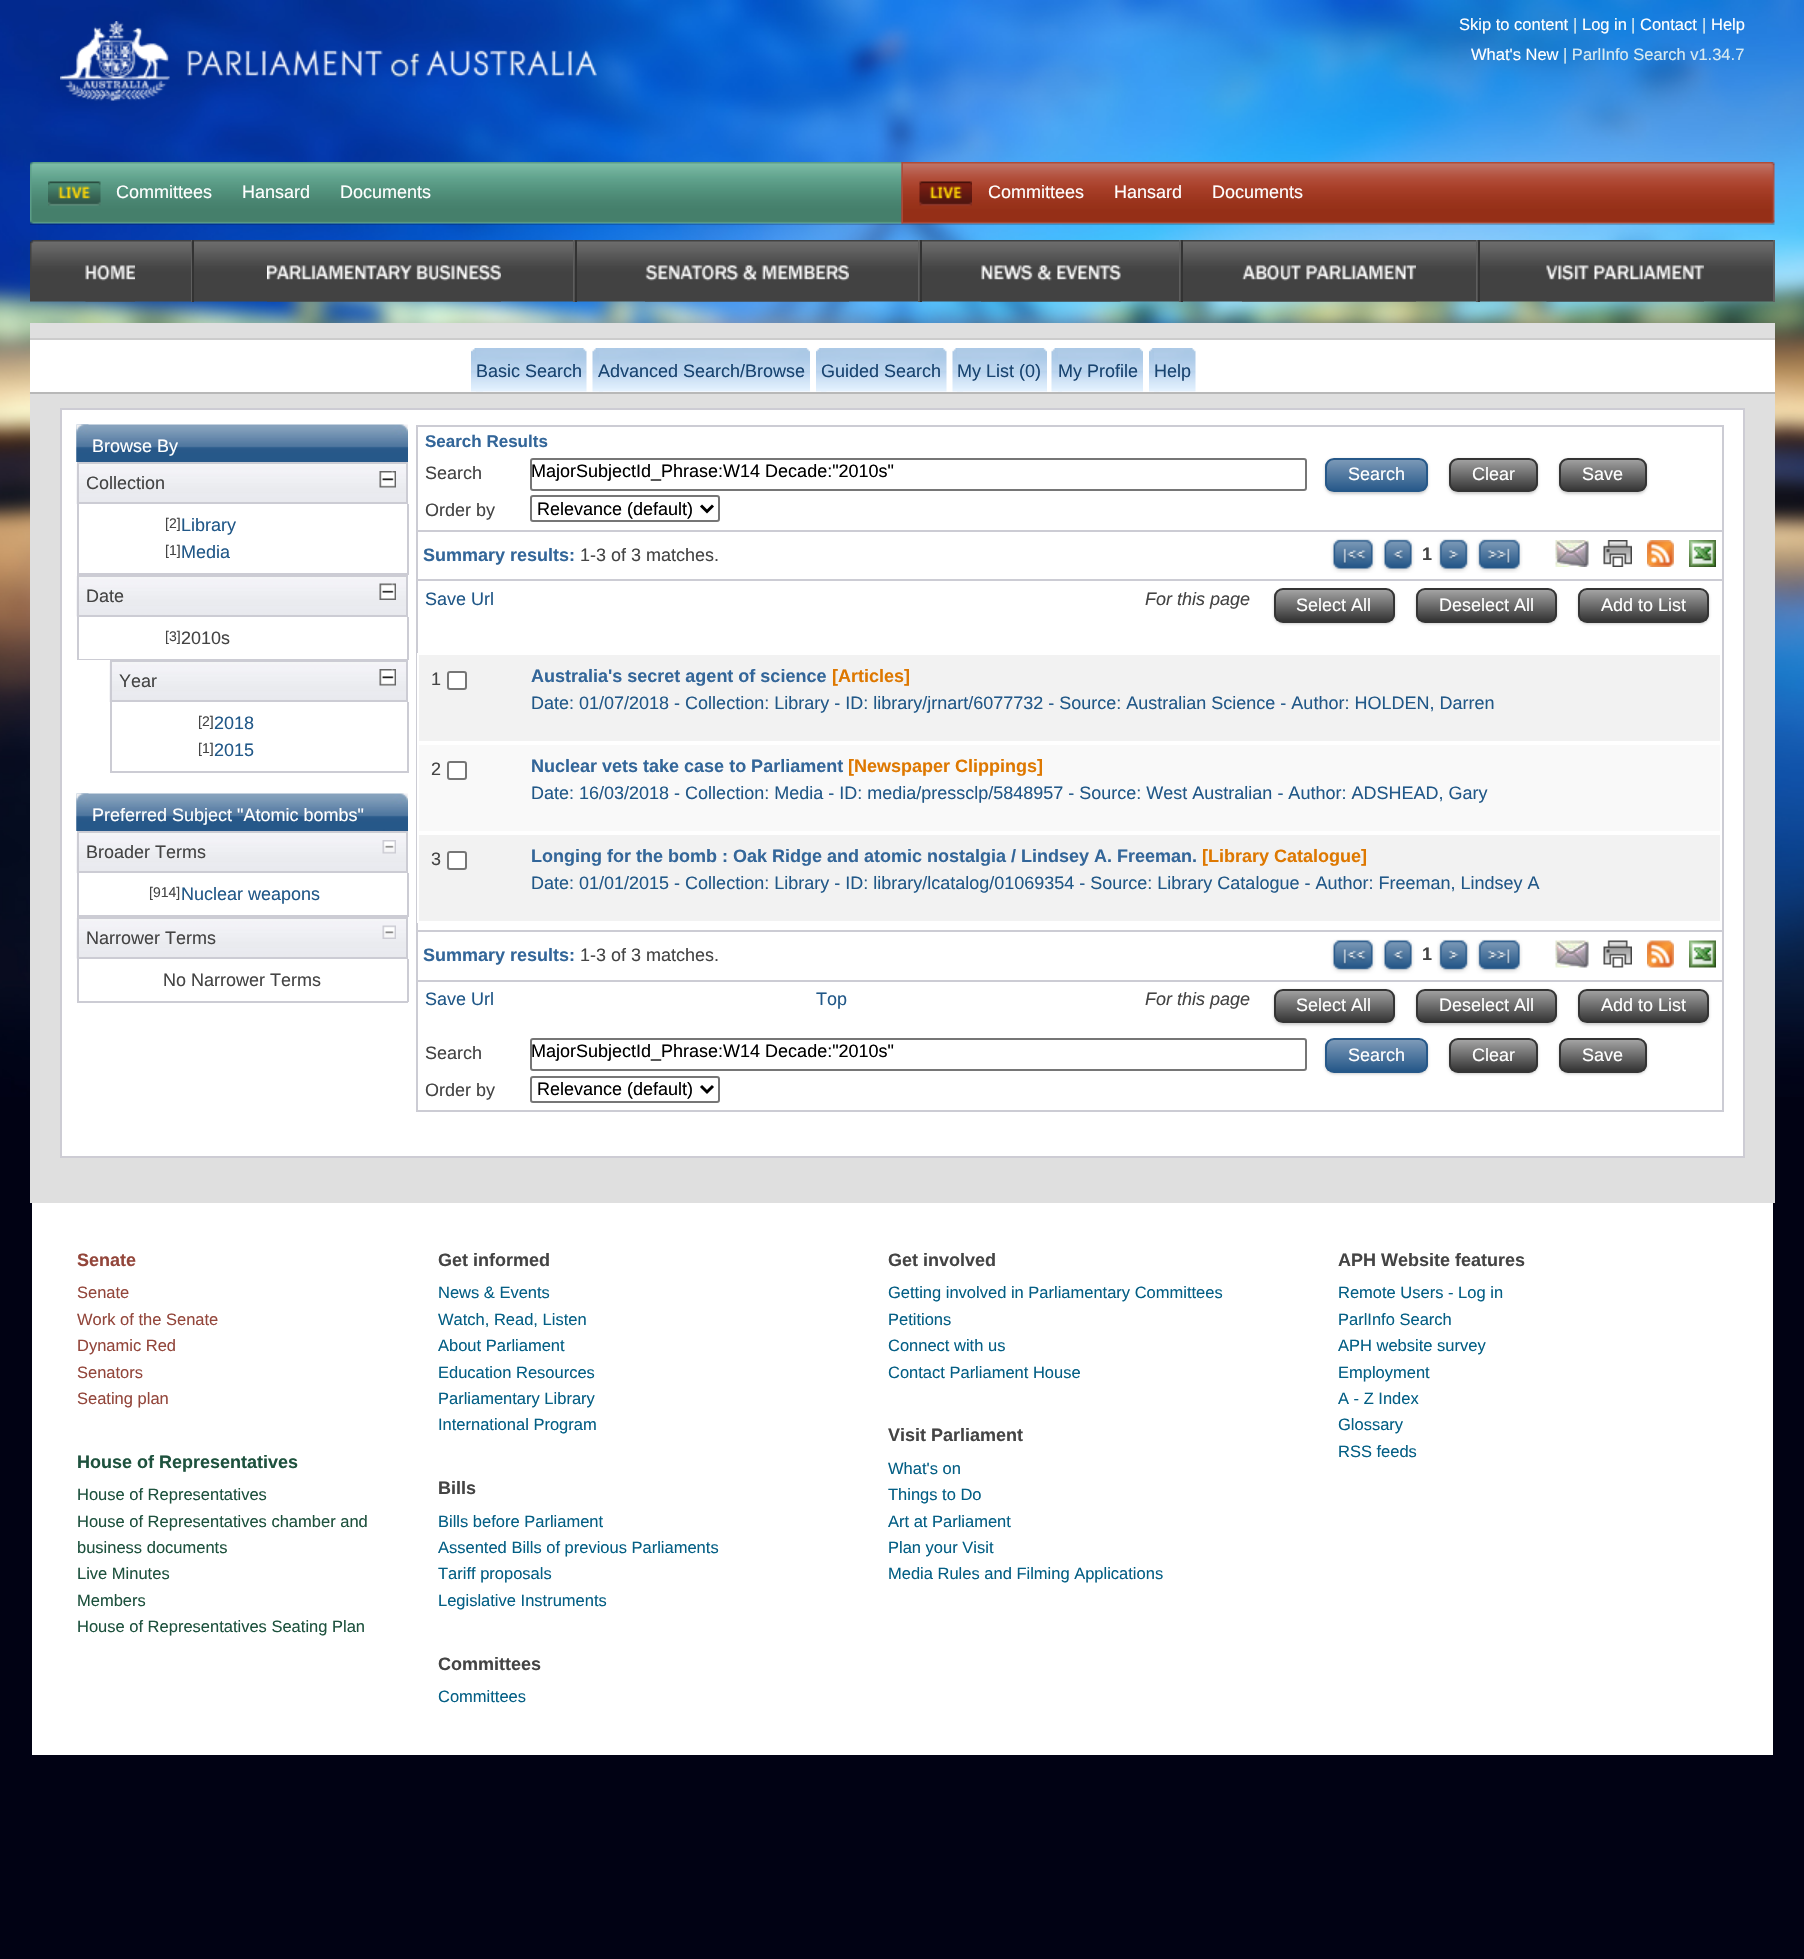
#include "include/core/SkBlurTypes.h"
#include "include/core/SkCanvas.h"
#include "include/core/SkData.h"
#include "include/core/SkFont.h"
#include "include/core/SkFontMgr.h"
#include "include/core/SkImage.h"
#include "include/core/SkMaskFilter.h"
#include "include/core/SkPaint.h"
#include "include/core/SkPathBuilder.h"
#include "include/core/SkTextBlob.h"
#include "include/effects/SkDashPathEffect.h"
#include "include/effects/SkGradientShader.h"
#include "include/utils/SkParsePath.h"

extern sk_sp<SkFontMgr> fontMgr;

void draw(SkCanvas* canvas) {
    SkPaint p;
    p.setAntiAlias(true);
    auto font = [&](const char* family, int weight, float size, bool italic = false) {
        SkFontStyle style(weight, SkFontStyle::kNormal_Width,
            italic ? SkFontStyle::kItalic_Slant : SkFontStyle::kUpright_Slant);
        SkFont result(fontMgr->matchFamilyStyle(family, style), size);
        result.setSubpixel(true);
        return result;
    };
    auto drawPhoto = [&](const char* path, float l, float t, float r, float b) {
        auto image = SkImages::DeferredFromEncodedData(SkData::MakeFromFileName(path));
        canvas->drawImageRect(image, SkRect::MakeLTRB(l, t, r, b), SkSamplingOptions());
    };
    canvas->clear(0xFF010214);
    drawPhoto("media/1.png", 0, 0, 1804, 1097);
    drawPhoto("media/2.png", 60, 21, 597, 101);
    auto font1 = font("Liberation Sans", 400, 16.5f);
    p.setColor(0xFFFFFFFF);
    canvas->drawString("Skip to content", 1459, 30, font1, p);
    p.setColor(0xFFD6EAF1);
    canvas->drawString("|", 1573, 30, font1, p);
    p.setColor(0xFFFFFFFF);
    canvas->drawString("Log in", 1582, 30, font1, p);
    p.setColor(0xFFD6EAF1);
    canvas->drawString("|", 1631, 30, font1, p);
    p.setColor(0xFFFFFFFF);
    canvas->drawString("Contact", 1640, 30, font1, p);
    p.setColor(0xFFD6EAF1);
    canvas->drawString("|", 1702, 30, font1, p);
    p.setColor(0xFFFFFFFF);
    canvas->drawString("Help", 1711, 30, font1, p);
    canvas->drawString("What's New", 1471, 60, font1, p);
    p.setColor(0xFFD6EAF1);
    canvas->drawString("| ParlInfo Search v1.34.7", 1563, 60, font1, p);
    drawPhoto("media/3.png", 30, 223, 1775, 225);
    drawPhoto("media/4.png", 30, 162, 902, 224);
    drawPhoto("media/5.png", 48, 181, 101, 206);
    auto font2 = font("Liberation Sans", 400, 18);
    p.setColor(0xFFFFFFFF);
    {
        const struct { const char* s; float x, y; } items[] = {
            {"Committees", 116, 198},
            {"Hansard", 242, 198},
            {"Documents", 340, 198},
        };
        for (auto [s, x, y] : items) {
            canvas->drawString(s, x, y, font2, p);
        }
    }
    drawPhoto("media/6.png", 901, 162, 1775, 224);
    drawPhoto("media/7.png", 901, 162, 903, 224);
    drawPhoto("media/8.png", 919, 181, 972, 206);
    {
        const struct { const char* s; float x, y; } items[] = {
            {"Committees", 988, 198},
            {"Hansard", 1114, 198},
            {"Documents", 1212, 198},
        };
        for (auto [s, x, y] : items) {
            canvas->drawString(s, x, y, font2, p);
        }
    }
    drawPhoto("media/9.png", 30, 240, 191, 302);
    p.setColor(0xFF5E5E5E);
    canvas->drawRect(SkRect::MakeLTRB(191, 240, 192, 302), p);
    drawPhoto("media/10.png", 85, 265, 135, 302);
    drawPhoto("media/11.png", 194, 240, 573, 302);
    canvas->drawRect(SkRect::MakeLTRB(573, 240, 575, 302), p);
    p.setColor(0xFF333333);
    canvas->drawRect(SkRect::MakeLTRB(192, 240, 194, 302), p);
    drawPhoto("media/12.png", 267, 265, 501, 302);
    drawPhoto("media/13.png", 574, 240, 918, 302);
    p.setColor(0xFF5E5E5E);
    canvas->drawRect(SkRect::MakeLTRB(918, 240, 920, 302), p);
    p.setColor(0xFF333333);
    canvas->drawRect(SkRect::MakeLTRB(575, 240, 577, 302), p);
    drawPhoto("media/14.png", 645, 265, 849, 302);
    drawPhoto("media/15.png", 919, 240, 1179, 302);
    p.setColor(0xFF5E5E5E);
    canvas->drawRect(SkRect::MakeLTRB(1179, 240, 1181, 302), p);
    p.setColor(0xFF333333);
    canvas->drawRect(SkRect::MakeLTRB(920, 240, 922, 302), p);
    drawPhoto("media/16.png", 981, 265, 1121, 302);
    drawPhoto("media/17.png", 1180, 240, 1476, 302);
    p.setColor(0xFF5E5E5E);
    canvas->drawRect(SkRect::MakeLTRB(1476, 240, 1478, 302), p);
    p.setColor(0xFF333333);
    canvas->drawRect(SkRect::MakeLTRB(1181, 240, 1183, 302), p);
    drawPhoto("media/18.png", 1242, 265, 1416, 302);
    drawPhoto("media/19.png", 1477, 240, 1773, 302);
    p.setColor(0xFF5E5E5E);
    canvas->drawRect(SkRect::MakeLTRB(1773, 240, 1775, 302), p);
    p.setColor(0xFF333333);
    canvas->drawRect(SkRect::MakeLTRB(1478, 240, 1480, 302), p);
    drawPhoto("media/20.png", 1546, 265, 1704, 302);
    {
        const struct { float l, t, r, b; SkColor color; } items[] = {
            {30, 323, 1775, 338, 0xFFDFDFDF},
            {30, 340, 1775, 392, 0xFFFFFFFF},
            {30, 338, 1775, 340, 0xFFCCCCCC},
        };
        for (auto [l, t, r, b, color] : items) {
            p.setColor(color);
            canvas->drawRect(SkRect::MakeLTRB(l, t, r, b), p);
        }
    }
    drawPhoto("media/21.png", 471, 348, 483, 392);
    drawPhoto("media/22.png", 476, 348, 587, 392);
    p.setColor(0xFF194470);
    canvas->drawString("Basic Search", 476, 377, font2, p);
    drawPhoto("media/23.png", 592, 348, 603, 392);
    drawPhoto("media/24.png", 599, 348, 810, 392);
    canvas->drawString("Advanced Search/Browse", 598, 377, font2, p);
    drawPhoto("media/25.png", 816, 348, 827, 392);
    drawPhoto("media/26.png", 821, 348, 947, 392);
    canvas->drawString("Guided Search", 821, 377, font2, p);
    drawPhoto("media/27.png", 952, 348, 963, 392);
    drawPhoto("media/28.png", 957, 348, 1047, 392);
    canvas->drawString("My List (0)", 957, 377, font2, p);
    drawPhoto("media/23.png", 1051, 348, 1062, 392);
    drawPhoto("media/29.png", 1058, 348, 1143, 392);
    canvas->drawString("My Profile", 1058, 377, font2, p);
    drawPhoto("media/30.png", 1149, 348, 1160, 392);
    drawPhoto("media/31.png", 1154, 348, 1196, 392);
    canvas->drawString("Help", 1154, 377, font2, p);
    p.setColor(0xFFDFDFDF);
    canvas->drawRect(SkRect::MakeLTRB(30, 394, 1775, 1203), p);
    p.setColor(0xFFB8B8B8);
    canvas->drawRect(SkRect::MakeLTRB(30, 392, 1775, 394), p);
    p.setColor(0xFFFFFFFF);
    canvas->drawRect(SkRect::MakeLTRB(61, 409, 1744, 1157), p);
    p.setStyle(SkPaint::kStroke_Style);
    p.setStrokeWidth(2);
    p.setColor(0xFFCDCCD4);
    canvas->drawRect(SkRect::MakeLTRB(61, 409, 1744, 1157), p);
    drawPhoto("media/32.png", 76, 424, 408, 462);
    drawPhoto("media/33.png", 76, 424, 89, 462);
    p.setStyle(SkPaint::kFill_Style);
    p.setColor(0xFFFFFFFF);
    canvas->drawString("Browse By", 92, 452, font2, p);
    drawPhoto("media/34.png", 76, 463, 406, 504);
    p.setStyle(SkPaint::kStroke_Style);
    p.setColor(0xFFCCCCD4);
    canvas->drawRect(SkRect::MakeLTRB(78, 463, 407, 503), p);
    p.setStyle(SkPaint::kFill_Style);
    p.setColor(0xFF444444);
    canvas->drawString("Collection", 86, 489, font2, p);
    drawPhoto("media/35.png", 379, 471, 396, 488);
    {
        const struct { float l, t, r, b; SkColor color; } items[] = {
            {407, 504, 409, 575, 0xFFCCCCD4},
            {77, 573, 408, 575, 0xFFCCCCD4},
            {77, 504, 79, 575, 0xFFCCCCD4},
        };
        for (auto [l, t, r, b, color] : items) {
            p.setColor(color);
            canvas->drawRect(SkRect::MakeLTRB(l, t, r, b), p);
        }
    }
    auto font3 = font("Liberation Sans", 400, 14);
    p.setColor(0xFF444444);
    canvas->drawString("[2]", 165, 528, font3, p);
    p.setColor(0xFF215888);
    canvas->drawString("Library", 181, 531, font2, p);
    p.setColor(0xFF444444);
    canvas->drawString("[1]", 165, 555, font3, p);
    p.setColor(0xFF215888);
    canvas->drawString("Media", 181, 558, font2, p);
    drawPhoto("media/36.png", 76, 576, 406, 617);
    p.setStyle(SkPaint::kStroke_Style);
    p.setColor(0xFFCCCCD4);
    canvas->drawRect(SkRect::MakeLTRB(78, 576, 407, 616), p);
    p.setStyle(SkPaint::kFill_Style);
    p.setColor(0xFF444444);
    canvas->drawString("Date", 86, 602, font2, p);
    drawPhoto("media/37.png", 379, 583, 396, 600);
    {
        const struct { float l, t, r, b; SkColor color; } items[] = {
            {407, 617, 409, 660, 0xFFCCCCD4},
            {77, 659, 408, 660, 0xFFCCCCD4},
            {77, 617, 79, 660, 0xFFCCCCD4},
        };
        for (auto [l, t, r, b, color] : items) {
            p.setColor(color);
            canvas->drawRect(SkRect::MakeLTRB(l, t, r, b), p);
        }
    }
    p.setColor(0xFF444444);
    canvas->drawString("[3]", 165, 641, font3, p);
    canvas->drawString("2010s", 181, 644, font2, p);
    drawPhoto("media/38.png", 109, 661, 406, 702);
    p.setStyle(SkPaint::kStroke_Style);
    p.setColor(0xFFCCCCD4);
    canvas->drawRect(SkRect::MakeLTRB(111, 661, 407, 701), p);
    p.setStyle(SkPaint::kFill_Style);
    p.setColor(0xFF444444);
    canvas->drawString("Year", 119, 687, font2, p);
    drawPhoto("media/35.png", 379, 669, 396, 686);
    {
        const struct { float l, t, r, b; SkColor color; } items[] = {
            {407, 702, 409, 773, 0xFFCCCCD4},
            {110, 771, 408, 773, 0xFFCCCCD4},
            {110, 702, 112, 773, 0xFFCCCCD4},
        };
        for (auto [l, t, r, b, color] : items) {
            p.setColor(color);
            canvas->drawRect(SkRect::MakeLTRB(l, t, r, b), p);
        }
    }
    p.setColor(0xFF444444);
    canvas->drawString("[2]", 198, 726, font3, p);
    p.setColor(0xFF215888);
    canvas->drawString("2018", 214, 729, font2, p);
    p.setColor(0xFF444444);
    canvas->drawString("[1]", 198, 753, font3, p);
    p.setColor(0xFF215888);
    canvas->drawString("2015", 214, 756, font2, p);
    drawPhoto("media/32.png", 76, 793, 408, 831);
    drawPhoto("media/33.png", 76, 793, 89, 831);
    p.setColor(0xFFFFFFFF);
    canvas->drawString("Preferred Subject \"Atomic bombs\"", 92, 821, font2, p);
    drawPhoto("media/34.png", 76, 832, 406, 873);
    p.setStyle(SkPaint::kStroke_Style);
    p.setColor(0xFFCCCCD4);
    canvas->drawRect(SkRect::MakeLTRB(78, 832, 407, 872), p);
    p.setStyle(SkPaint::kFill_Style);
    p.setColor(0xFF444444);
    canvas->drawString("Broader Terms", 86, 858, font2, p);
    drawPhoto("media/39.png", 382, 840, 396, 854);
    {
        const struct { float l, t, r, b; SkColor color; } items[] = {
            {407, 873, 409, 917, 0xFFCCCCD4},
            {77, 915, 408, 917, 0xFFCCCCD4},
            {77, 873, 79, 917, 0xFFCCCCD4},
        };
        for (auto [l, t, r, b, color] : items) {
            p.setColor(color);
            canvas->drawRect(SkRect::MakeLTRB(l, t, r, b), p);
        }
    }
    p.setColor(0xFF444444);
    canvas->drawString("[914]", 149, 897, font3, p);
    p.setColor(0xFF215888);
    canvas->drawString("Nuclear weapons", 181, 900, font2, p);
    drawPhoto("media/40.png", 76, 918, 406, 959);
    p.setStyle(SkPaint::kStroke_Style);
    p.setColor(0xFFCCCCD4);
    canvas->drawRect(SkRect::MakeLTRB(78, 918, 407, 958), p);
    p.setStyle(SkPaint::kFill_Style);
    p.setColor(0xFF444444);
    canvas->drawString("Narrower Terms", 86, 944, font2, p);
    drawPhoto("media/41.png", 382, 925, 396, 939);
    {
        const struct { float l, t, r, b; SkColor color; } items[] = {
            {407, 959, 409, 1002, 0xFFCCCCD4},
            {77, 1001, 408, 1003, 0xFFCCCCD4},
            {77, 959, 79, 1002, 0xFFCCCCD4},
        };
        for (auto [l, t, r, b, color] : items) {
            p.setColor(color);
            canvas->drawRect(SkRect::MakeLTRB(l, t, r, b), p);
        }
    }
    p.setColor(0xFF444444);
    canvas->drawString("No Narrower Terms", 163, 986, font2, p);
    p.setStyle(SkPaint::kStroke_Style);
    p.setColor(0xFFCCCCD4);
    canvas->drawRect(SkRect::MakeLTRB(417, 426, 1723, 1111), p);
    auto font4 = font("Liberation Sans", 700, 17);
    p.setStyle(SkPaint::kFill_Style);
    p.setColor(0xFF336699);
    canvas->drawString("Search Results", 425, 447, font4, p);
    p.setColor(0xFF444444);
    canvas->drawString("Search", 425, 479, font2, p);
    p.setStyle(SkPaint::kStroke_Style);
    p.setColor(0xFF767676);
    canvas->drawRoundRect(SkRect::MakeLTRB(531, 459, 1306, 490), 2, 2, p);
    p.setStyle(SkPaint::kFill_Style);
    p.setColor(0xFF000000);
    canvas->drawString("MajorSubjectId_Phrase:W14 Decade:\"2010s\"", 531, 477, font2, p);
    p.setColor(0x33000000);
    p.setMaskFilter(SkMaskFilter::MakeBlur(kNormal_SkBlurStyle, 1.5f));
    canvas->drawRoundRect(SkRect::MakeLTRB(1325, 459, 1428, 494), 9, 9, p);
    p.setMaskFilter(nullptr);
    canvas->save();
    canvas->clipPath(SkPathBuilder().moveTo(1334, 458).lineTo(1419, 458).cubicTo(1424, 458, 1428, 462, 1428, 467).lineTo(1428, 483).cubicTo(1428, 488, 1424, 492, 1419, 492).lineTo(1334, 492).cubicTo(1329, 492, 1325, 488, 1325, 483).lineTo(1325, 467).cubicTo(1325, 462, 1329, 458, 1334, 458).close().detach(), true);
    {
        const SkColor colors[] = {0xFF7D9AB8, 0xFF265889};
        const float stops[] = {0, 1};
        const SkPoint ends[] = {{1326, 459}, {1326, 491}};
        p.setShader(SkGradientShader::MakeLinear(ends, colors, stops, 2, SkTileMode::kClamp));
        p.setAlpha(255);
    }
    canvas->drawRect(SkRect::MakeLTRB(1325, 459, 1428, 491), p);
    canvas->restore();
    p.setStyle(SkPaint::kStroke_Style);
    p.setShader(nullptr);
    p.setColor(0xFF265889);
    canvas->drawRoundRect(SkRect::MakeLTRB(1326, 459, 1427, 491), 8, 8, p);
    p.setStyle(SkPaint::kFill_Style);
    p.setColor(0xFFFFFFFF);
    canvas->drawString("Search", 1348, 480, font2, p);
    p.setColor(0x33000000);
    p.setMaskFilter(SkMaskFilter::MakeBlur(kNormal_SkBlurStyle, 1.5f));
    canvas->drawRoundRect(SkRect::MakeLTRB(1449, 459, 1538, 494), 9, 9, p);
    p.setMaskFilter(nullptr);
    canvas->save();
    canvas->clipPath(SkPathBuilder().moveTo(1458, 458).lineTo(1529, 458).cubicTo(1534, 458, 1538, 462, 1538, 467).lineTo(1538, 483).cubicTo(1538, 488, 1534, 492, 1529, 492).lineTo(1458, 492).cubicTo(1453, 492, 1449, 488, 1449, 483).lineTo(1449, 467).cubicTo(1449, 462, 1453, 458, 1458, 458).close().detach(), true);
    {
        const SkColor colors[] = {0xFFA3A3A3, 0xFF343434};
        const float stops[] = {0, 1};
        const SkPoint ends[] = {{1451, 459}, {1451, 491}};
        p.setShader(SkGradientShader::MakeLinear(ends, colors, stops, 2, SkTileMode::kClamp));
        p.setAlpha(255);
    }
    canvas->drawRect(SkRect::MakeLTRB(1449, 459, 1538, 491), p);
    canvas->restore();
    p.setStyle(SkPaint::kStroke_Style);
    p.setShader(nullptr);
    p.setColor(0xFF343434);
    canvas->drawRoundRect(SkRect::MakeLTRB(1450, 459, 1537, 491), 8, 8, p);
    p.setStyle(SkPaint::kFill_Style);
    p.setColor(0xFFFFFFFF);
    canvas->drawString("Clear", 1472, 480, font2, p);
    p.setColor(0x33000000);
    p.setMaskFilter(SkMaskFilter::MakeBlur(kNormal_SkBlurStyle, 1.5f));
    canvas->drawRoundRect(SkRect::MakeLTRB(1559, 459, 1647, 494), 9, 9, p);
    p.setMaskFilter(nullptr);
    canvas->save();
    canvas->clipPath(SkPathBuilder().moveTo(1568, 458).lineTo(1638, 458).cubicTo(1643, 458, 1647, 462, 1647, 467).lineTo(1647, 483).cubicTo(1647, 488, 1643, 492, 1638, 492).lineTo(1568, 492).cubicTo(1563, 492, 1559, 488, 1559, 483).lineTo(1559, 467).cubicTo(1559, 462, 1563, 458, 1568, 458).close().detach(), true);
    {
        const SkColor colors[] = {0xFFA3A3A3, 0xFF343434};
        const float stops[] = {0, 1};
        const SkPoint ends[] = {{1560, 459}, {1560, 491}};
        p.setShader(SkGradientShader::MakeLinear(ends, colors, stops, 2, SkTileMode::kClamp));
        p.setAlpha(255);
    }
    canvas->drawRect(SkRect::MakeLTRB(1559, 459, 1647, 491), p);
    canvas->restore();
    p.setStyle(SkPaint::kStroke_Style);
    p.setShader(nullptr);
    p.setColor(0xFF343434);
    canvas->drawRoundRect(SkRect::MakeLTRB(1560, 459, 1646, 491), 8, 8, p);
    p.setStyle(SkPaint::kFill_Style);
    p.setColor(0xFFFFFFFF);
    canvas->drawString("Save", 1582, 480, font2, p);
    p.setColor(0xFF444444);
    canvas->drawString("Order by", 425, 516, font2, p);
    p.setStyle(SkPaint::kStroke_Style);
    p.setColor(0xFF767676);
    canvas->drawRoundRect(SkRect::MakeLTRB(531, 496, 719, 521), 2, 2, p);
    p.setStrokeWidth(3);
    p.setColor(0xFF000000);
    canvas->drawPath(SkPathBuilder().moveTo(701, 505.5f).lineTo(707, 511.5f).lineTo(713, 505.5f).detach(), p);
    p.setStyle(SkPaint::kFill_Style);
    canvas->drawString("Relevance (default)", 537, 515, font2, p);
    p.setColor(0xFFCCCCD4);
    canvas->drawRect(SkRect::MakeLTRB(417, 530, 1722, 532), p);
    canvas->drawRect(SkRect::MakeLTRB(417, 579, 1722, 581), p);
    auto font5 = font("Liberation Sans", 700, 18);
    p.setColor(0xFF336699);
    canvas->drawString("Summary results:", 423, 561, font5, p);
    p.setColor(0xFF444444);
    canvas->drawString("1-3 of 3 matches.", 580, 561, font2, p);
    drawPhoto("media/42.png", 1330, 538, 1376, 573);
    drawPhoto("media/43.png", 1381, 538, 1415, 573);
    canvas->drawString("1", 1422, 560, font5, p);
    drawPhoto("media/44.png", 1437, 538, 1470, 573);
    drawPhoto("media/45.png", 1476, 538, 1523, 573);
    drawPhoto("media/46.png", 1555, 540, 1589, 567);
    drawPhoto("media/47.png", 1603, 540, 1632, 567);
    drawPhoto("media/48.png", 1647, 540, 1674, 567);
    drawPhoto("media/49.png", 1689, 540, 1716, 567);
    p.setColor(0xFF215888);
    canvas->drawString("Save Url", 425, 605, font2, p);
    auto font6 = font("Liberation Sans", 400, 18, true);
    p.setColor(0xFF444444);
    canvas->drawString("For this page", 1145, 605, font6, p);
    p.setColor(0x33000000);
    p.setMaskFilter(SkMaskFilter::MakeBlur(kNormal_SkBlurStyle, 1.5f));
    canvas->drawRoundRect(SkRect::MakeLTRB(1274, 590, 1395, 624), 9, 9, p);
    p.setMaskFilter(nullptr);
    canvas->save();
    canvas->clipPath(SkPathBuilder().moveTo(1283, 588).lineTo(1386, 588).cubicTo(1391, 588, 1395, 592, 1395, 597).lineTo(1395, 614).cubicTo(1395, 619, 1391, 623, 1386, 623).lineTo(1283, 623).cubicTo(1278, 623, 1274, 619, 1274, 614).lineTo(1274, 597).cubicTo(1274, 592, 1278, 588, 1283, 588).close().detach(), true);
    {
        const SkColor colors[] = {0xFFA3A3A3, 0xFF343434};
        const float stops[] = {0, 1};
        const SkPoint ends[] = {{1275, 590}, {1275, 621}};
        p.setShader(SkGradientShader::MakeLinear(ends, colors, stops, 2, SkTileMode::kClamp));
        p.setAlpha(255);
    }
    canvas->drawRect(SkRect::MakeLTRB(1274, 590, 1395, 621), p);
    canvas->restore();
    p.setStyle(SkPaint::kStroke_Style);
    p.setStrokeWidth(2);
    p.setShader(nullptr);
    p.setColor(0xFF343434);
    canvas->drawRoundRect(SkRect::MakeLTRB(1275, 589, 1394, 622), 8, 8, p);
    p.setStyle(SkPaint::kFill_Style);
    p.setColor(0xFFFFFFFF);
    canvas->drawString("Select All", 1296, 611, font2, p);
    p.setColor(0x33000000);
    p.setMaskFilter(SkMaskFilter::MakeBlur(kNormal_SkBlurStyle, 1.5f));
    canvas->drawRoundRect(SkRect::MakeLTRB(1416, 590, 1557, 624), 9, 9, p);
    p.setMaskFilter(nullptr);
    canvas->save();
    canvas->clipPath(SkPathBuilder().moveTo(1425, 588).lineTo(1548, 588).cubicTo(1553, 588, 1557, 592, 1557, 597).lineTo(1557, 614).cubicTo(1557, 619, 1553, 623, 1548, 623).lineTo(1425, 623).cubicTo(1420, 623, 1416, 619, 1416, 614).lineTo(1416, 597).cubicTo(1416, 592, 1420, 588, 1425, 588).close().detach(), true);
    {
        const SkColor colors[] = {0xFFA3A3A3, 0xFF343434};
        const float stops[] = {0, 1};
        const SkPoint ends[] = {{1418, 590}, {1418, 621}};
        p.setShader(SkGradientShader::MakeLinear(ends, colors, stops, 2, SkTileMode::kClamp));
        p.setAlpha(255);
    }
    canvas->drawRect(SkRect::MakeLTRB(1416, 590, 1557, 621), p);
    canvas->restore();
    p.setStyle(SkPaint::kStroke_Style);
    p.setShader(nullptr);
    p.setColor(0xFF343434);
    canvas->drawRoundRect(SkRect::MakeLTRB(1417, 589, 1556, 622), 8, 8, p);
    p.setStyle(SkPaint::kFill_Style);
    p.setColor(0xFFFFFFFF);
    canvas->drawString("Deselect All", 1439, 611, font2, p);
    p.setColor(0x33000000);
    p.setMaskFilter(SkMaskFilter::MakeBlur(kNormal_SkBlurStyle, 1.5f));
    canvas->drawRoundRect(SkRect::MakeLTRB(1578, 590, 1709, 624), 9, 9, p);
    p.setMaskFilter(nullptr);
    canvas->save();
    canvas->clipPath(SkPathBuilder().moveTo(1587, 588).lineTo(1700, 588).cubicTo(1705, 588, 1709, 592, 1709, 597).lineTo(1709, 614).cubicTo(1709, 619, 1705, 623, 1700, 623).lineTo(1587, 623).cubicTo(1582, 623, 1578, 619, 1578, 614).lineTo(1578, 597).cubicTo(1578, 592, 1582, 588, 1587, 588).close().detach(), true);
    {
        const SkColor colors[] = {0xFFA3A3A3, 0xFF343434};
        const float stops[] = {0, 1};
        const SkPoint ends[] = {{1580, 590}, {1580, 621}};
        p.setShader(SkGradientShader::MakeLinear(ends, colors, stops, 2, SkTileMode::kClamp));
        p.setAlpha(255);
    }
    canvas->drawRect(SkRect::MakeLTRB(1578, 590, 1709, 621), p);
    canvas->restore();
    p.setStyle(SkPaint::kStroke_Style);
    p.setShader(nullptr);
    p.setColor(0xFF343434);
    canvas->drawRoundRect(SkRect::MakeLTRB(1579, 589, 1708, 622), 8, 8, p);
    p.setStyle(SkPaint::kFill_Style);
    p.setColor(0xFFFFFFFF);
    canvas->drawString("Add to List", 1601, 611, font2, p);
    p.setColor(0xFFF2F2F2);
    canvas->drawRect(SkRect::MakeLTRB(418, 654, 1721, 742), p);
    p.setStyle(SkPaint::kStroke_Style);
    p.setColor(0xFFFFFFFF);
    canvas->drawRect(SkRect::MakeLTRB(418, 654, 1721, 742), p);
    p.setStyle(SkPaint::kFill_Style);
    p.setColor(0xFF444444);
    canvas->drawString("1", 431, 685, font2, p);
    p.setColor(0xFFFFFFFF);
    canvas->drawRoundRect(SkRect::MakeLTRB(448, 672, 466, 689), 2, 2, p);
    p.setStyle(SkPaint::kStroke_Style);
    p.setColor(0xFF767676);
    canvas->drawRoundRect(SkRect::MakeLTRB(448, 672, 466, 689), 2, 2, p);
    p.setStyle(SkPaint::kFill_Style);
    p.setColor(0xFF336699);
    canvas->drawString("Australia's secret agent of science", 531, 682, font5, p);
    p.setColor(0xFFDE7800);
    canvas->drawString("[Articles]", 832, 682, font5, p);
    p.setColor(0xFF215888);
    canvas->drawString("Date: 01/07/2018 - Collection: Library - ID: library/jrnart/6077732 - Source: Australian Science - Author: HOLDEN, Darren", 531, 709, font2, p);
    p.setColor(0xFFF9F9F9);
    canvas->drawRect(SkRect::MakeLTRB(418, 744, 1721, 832), p);
    p.setStyle(SkPaint::kStroke_Style);
    p.setColor(0xFFFFFFFF);
    canvas->drawRect(SkRect::MakeLTRB(418, 744, 1721, 832), p);
    p.setStyle(SkPaint::kFill_Style);
    p.setColor(0xFF444444);
    canvas->drawString("2", 431, 775, font2, p);
    p.setColor(0xFFFFFFFF);
    canvas->drawRoundRect(SkRect::MakeLTRB(448, 762, 466, 779), 2, 2, p);
    p.setStyle(SkPaint::kStroke_Style);
    p.setColor(0xFF767676);
    canvas->drawRoundRect(SkRect::MakeLTRB(448, 762, 466, 779), 2, 2, p);
    p.setStyle(SkPaint::kFill_Style);
    p.setColor(0xFF336699);
    canvas->drawString("Nuclear vets take case to Parliament", 531, 772, font5, p);
    p.setColor(0xFFDE7800);
    canvas->drawString("[Newspaper Clippings]", 848, 772, font5, p);
    p.setColor(0xFF215888);
    canvas->drawString("Date: 16/03/2018 - Collection: Media - ID: media/pressclp/5848957 - Source: West Australian - Author: ADSHEAD, Gary", 531, 799, font2, p);
    p.setColor(0xFFF2F2F2);
    canvas->drawRect(SkRect::MakeLTRB(418, 834, 1721, 922), p);
    p.setStyle(SkPaint::kStroke_Style);
    p.setColor(0xFFFFFFFF);
    canvas->drawRect(SkRect::MakeLTRB(418, 834, 1721, 922), p);
    p.setStyle(SkPaint::kFill_Style);
    p.setColor(0xFF444444);
    canvas->drawString("3", 431, 865, font2, p);
    p.setColor(0xFFFFFFFF);
    canvas->drawRoundRect(SkRect::MakeLTRB(448, 852, 466, 869), 2, 2, p);
    p.setStyle(SkPaint::kStroke_Style);
    p.setColor(0xFF767676);
    canvas->drawRoundRect(SkRect::MakeLTRB(448, 852, 466, 869), 2, 2, p);
    p.setStyle(SkPaint::kFill_Style);
    p.setColor(0xFF336699);
    canvas->drawString("Longing for the bomb : Oak Ridge and atomic nostalgia / Lindsey A. Freeman.", 531, 862, font5, p);
    p.setColor(0xFFDE7800);
    canvas->drawString("[Library Catalogue]", 1202, 862, font5, p);
    p.setColor(0xFF215888);
    canvas->drawString("Date: 01/01/2015 - Collection: Library - ID: library/lcatalog/01069354 - Source: Library Catalogue - Author: Freeman, Lindsey A", 531, 889, font2, p);
    p.setColor(0xFFCCCCD4);
    canvas->drawRect(SkRect::MakeLTRB(417, 930, 1722, 932), p);
    canvas->drawRect(SkRect::MakeLTRB(417, 980, 1722, 982), p);
    p.setColor(0xFF336699);
    canvas->drawString("Summary results:", 423, 961, font5, p);
    p.setColor(0xFF444444);
    canvas->drawString("1-3 of 3 matches.", 580, 961, font2, p);
    drawPhoto("media/50.png", 1330, 939, 1376, 974);
    drawPhoto("media/51.png", 1381, 939, 1415, 974);
    canvas->drawString("1", 1422, 960, font5, p);
    drawPhoto("media/52.png", 1437, 939, 1470, 974);
    drawPhoto("media/53.png", 1476, 939, 1523, 974);
    drawPhoto("media/54.png", 1555, 940, 1589, 968);
    drawPhoto("media/55.png", 1603, 940, 1632, 968);
    drawPhoto("media/56.png", 1647, 940, 1674, 968);
    drawPhoto("media/57.png", 1689, 940, 1716, 968);
    p.setColor(0xFF215888);
    canvas->drawString("Save Url", 425, 1005, font2, p);
    p.setColor(0xFF444444);
    canvas->drawString("For this page", 1145, 1005, font6, p);
    p.setColor(0x33000000);
    p.setMaskFilter(SkMaskFilter::MakeBlur(kNormal_SkBlurStyle, 1.5f));
    canvas->drawRoundRect(SkRect::MakeLTRB(1274, 990, 1395, 1025), 9, 9, p);
    p.setMaskFilter(nullptr);
    canvas->save();
    canvas->clipPath(SkPathBuilder().moveTo(1283, 989).lineTo(1386, 989).cubicTo(1391, 989, 1395, 993, 1395, 998).lineTo(1395, 1014).cubicTo(1395, 1019, 1391, 1023, 1386, 1023).lineTo(1283, 1023).cubicTo(1278, 1023, 1274, 1019, 1274, 1014).lineTo(1274, 998).cubicTo(1274, 993, 1278, 989, 1283, 989).close().detach(), true);
    {
        const SkColor colors[] = {0xFFA3A3A3, 0xFF343434};
        const float stops[] = {0, 1};
        const SkPoint ends[] = {{1275, 990}, {1275, 1022}};
        p.setShader(SkGradientShader::MakeLinear(ends, colors, stops, 2, SkTileMode::kClamp));
        p.setAlpha(255);
    }
    canvas->drawRect(SkRect::MakeLTRB(1274, 990, 1395, 1022), p);
    canvas->restore();
    p.setStyle(SkPaint::kStroke_Style);
    p.setShader(nullptr);
    p.setColor(0xFF343434);
    canvas->drawRoundRect(SkRect::MakeLTRB(1275, 990, 1394, 1022), 8, 8, p);
    p.setStyle(SkPaint::kFill_Style);
    p.setColor(0xFFFFFFFF);
    canvas->drawString("Select All", 1296, 1011, font2, p);
    p.setColor(0x33000000);
    p.setMaskFilter(SkMaskFilter::MakeBlur(kNormal_SkBlurStyle, 1.5f));
    canvas->drawRoundRect(SkRect::MakeLTRB(1416, 990, 1557, 1025), 9, 9, p);
    p.setMaskFilter(nullptr);
    canvas->save();
    canvas->clipPath(SkPathBuilder().moveTo(1425, 989).lineTo(1548, 989).cubicTo(1553, 989, 1557, 993, 1557, 998).lineTo(1557, 1014).cubicTo(1557, 1019, 1553, 1023, 1548, 1023).lineTo(1425, 1023).cubicTo(1420, 1023, 1416, 1019, 1416, 1014).lineTo(1416, 998).cubicTo(1416, 993, 1420, 989, 1425, 989).close().detach(), true);
    {
        const SkColor colors[] = {0xFFA3A3A3, 0xFF343434};
        const float stops[] = {0, 1};
        const SkPoint ends[] = {{1418, 990}, {1418, 1022}};
        p.setShader(SkGradientShader::MakeLinear(ends, colors, stops, 2, SkTileMode::kClamp));
        p.setAlpha(255);
    }
    canvas->drawRect(SkRect::MakeLTRB(1416, 990, 1557, 1022), p);
    canvas->restore();
    p.setStyle(SkPaint::kStroke_Style);
    p.setShader(nullptr);
    p.setColor(0xFF343434);
    canvas->drawRoundRect(SkRect::MakeLTRB(1417, 990, 1556, 1022), 8, 8, p);
    p.setStyle(SkPaint::kFill_Style);
    p.setColor(0xFFFFFFFF);
    canvas->drawString("Deselect All", 1439, 1011, font2, p);
    p.setColor(0x33000000);
    p.setMaskFilter(SkMaskFilter::MakeBlur(kNormal_SkBlurStyle, 1.5f));
    canvas->drawRoundRect(SkRect::MakeLTRB(1578, 990, 1709, 1025), 9, 9, p);
    p.setMaskFilter(nullptr);
    canvas->save();
    canvas->clipPath(SkPathBuilder().moveTo(1587, 989).lineTo(1700, 989).cubicTo(1705, 989, 1709, 993, 1709, 998).lineTo(1709, 1014).cubicTo(1709, 1019, 1705, 1023, 1700, 1023).lineTo(1587, 1023).cubicTo(1582, 1023, 1578, 1019, 1578, 1014).lineTo(1578, 998).cubicTo(1578, 993, 1582, 989, 1587, 989).close().detach(), true);
    {
        const SkColor colors[] = {0xFFA3A3A3, 0xFF343434};
        const float stops[] = {0, 1};
        const SkPoint ends[] = {{1580, 990}, {1580, 1022}};
        p.setShader(SkGradientShader::MakeLinear(ends, colors, stops, 2, SkTileMode::kClamp));
        p.setAlpha(255);
    }
    canvas->drawRect(SkRect::MakeLTRB(1578, 990, 1709, 1022), p);
    canvas->restore();
    p.setStyle(SkPaint::kStroke_Style);
    p.setShader(nullptr);
    p.setColor(0xFF343434);
    canvas->drawRoundRect(SkRect::MakeLTRB(1579, 990, 1708, 1022), 8, 8, p);
    p.setStyle(SkPaint::kFill_Style);
    p.setColor(0xFFFFFFFF);
    canvas->drawString("Add to List", 1601, 1011, font2, p);
    p.setColor(0xFF215888);
    canvas->drawString("Top", 816, 1005, font2, p);
    p.setColor(0xFF444444);
    canvas->drawString("Search", 425, 1059, font2, p);
    p.setStyle(SkPaint::kStroke_Style);
    p.setColor(0xFF767676);
    canvas->drawRoundRect(SkRect::MakeLTRB(531, 1039, 1306, 1070), 2, 2, p);
    p.setStyle(SkPaint::kFill_Style);
    p.setColor(0xFF000000);
    canvas->drawString("MajorSubjectId_Phrase:W14 Decade:\"2010s\"", 531, 1057, font2, p);
    p.setColor(0x33000000);
    p.setMaskFilter(SkMaskFilter::MakeBlur(kNormal_SkBlurStyle, 1.5f));
    canvas->drawRoundRect(SkRect::MakeLTRB(1325, 1040, 1428, 1074), 9, 9, p);
    p.setMaskFilter(nullptr);
    canvas->save();
    canvas->clipPath(SkPathBuilder().moveTo(1334, 1038).lineTo(1419, 1038).cubicTo(1424, 1038, 1428, 1042, 1428, 1047).lineTo(1428, 1064).cubicTo(1428, 1069, 1424, 1073, 1419, 1073).lineTo(1334, 1073).cubicTo(1329, 1073, 1325, 1069, 1325, 1064).lineTo(1325, 1047).cubicTo(1325, 1042, 1329, 1038, 1334, 1038).close().detach(), true);
    {
        const SkColor colors[] = {0xFF7D9AB8, 0xFF265889};
        const float stops[] = {0, 1};
        const SkPoint ends[] = {{1326, 1040}, {1326, 1071}};
        p.setShader(SkGradientShader::MakeLinear(ends, colors, stops, 2, SkTileMode::kClamp));
        p.setAlpha(255);
    }
    canvas->drawRect(SkRect::MakeLTRB(1325, 1040, 1428, 1071), p);
    canvas->restore();
    p.setStyle(SkPaint::kStroke_Style);
    p.setShader(nullptr);
    p.setColor(0xFF265889);
    canvas->drawRoundRect(SkRect::MakeLTRB(1326, 1039, 1427, 1072), 8, 8, p);
    p.setStyle(SkPaint::kFill_Style);
    p.setColor(0xFFFFFFFF);
    canvas->drawString("Search", 1348, 1061, font2, p);
    p.setColor(0x33000000);
    p.setMaskFilter(SkMaskFilter::MakeBlur(kNormal_SkBlurStyle, 1.5f));
    canvas->drawRoundRect(SkRect::MakeLTRB(1449, 1040, 1538, 1074), 9, 9, p);
    p.setMaskFilter(nullptr);
    canvas->save();
    canvas->clipPath(SkPathBuilder().moveTo(1458, 1038).lineTo(1529, 1038).cubicTo(1534, 1038, 1538, 1042, 1538, 1047).lineTo(1538, 1064).cubicTo(1538, 1069, 1534, 1073, 1529, 1073).lineTo(1458, 1073).cubicTo(1453, 1073, 1449, 1069, 1449, 1064).lineTo(1449, 1047).cubicTo(1449, 1042, 1453, 1038, 1458, 1038).close().detach(), true);
    {
        const SkColor colors[] = {0xFFA3A3A3, 0xFF343434};
        const float stops[] = {0, 1};
        const SkPoint ends[] = {{1451, 1040}, {1451, 1071}};
        p.setShader(SkGradientShader::MakeLinear(ends, colors, stops, 2, SkTileMode::kClamp));
        p.setAlpha(255);
    }
    canvas->drawRect(SkRect::MakeLTRB(1449, 1040, 1538, 1071), p);
    canvas->restore();
    p.setStyle(SkPaint::kStroke_Style);
    p.setShader(nullptr);
    p.setColor(0xFF343434);
    canvas->drawRoundRect(SkRect::MakeLTRB(1450, 1039, 1537, 1072), 8, 8, p);
    p.setStyle(SkPaint::kFill_Style);
    p.setColor(0xFFFFFFFF);
    canvas->drawString("Clear", 1472, 1061, font2, p);
    p.setColor(0x33000000);
    p.setMaskFilter(SkMaskFilter::MakeBlur(kNormal_SkBlurStyle, 1.5f));
    canvas->drawRoundRect(SkRect::MakeLTRB(1559, 1040, 1647, 1074), 9, 9, p);
    p.setMaskFilter(nullptr);
    canvas->save();
    canvas->clipPath(SkPathBuilder().moveTo(1568, 1038).lineTo(1638, 1038).cubicTo(1643, 1038, 1647, 1042, 1647, 1047).lineTo(1647, 1064).cubicTo(1647, 1069, 1643, 1073, 1638, 1073).lineTo(1568, 1073).cubicTo(1563, 1073, 1559, 1069, 1559, 1064).lineTo(1559, 1047).cubicTo(1559, 1042, 1563, 1038, 1568, 1038).close().detach(), true);
    {
        const SkColor colors[] = {0xFFA3A3A3, 0xFF343434};
        const float stops[] = {0, 1};
        const SkPoint ends[] = {{1560, 1040}, {1560, 1071}};
        p.setShader(SkGradientShader::MakeLinear(ends, colors, stops, 2, SkTileMode::kClamp));
        p.setAlpha(255);
    }
    canvas->drawRect(SkRect::MakeLTRB(1559, 1040, 1647, 1071), p);
    canvas->restore();
    p.setStyle(SkPaint::kStroke_Style);
    p.setShader(nullptr);
    p.setColor(0xFF343434);
    canvas->drawRoundRect(SkRect::MakeLTRB(1560, 1039, 1646, 1072), 8, 8, p);
    p.setStyle(SkPaint::kFill_Style);
    p.setColor(0xFFFFFFFF);
    canvas->drawString("Save", 1582, 1061, font2, p);
    p.setColor(0xFF444444);
    canvas->drawString("Order by", 425, 1096, font2, p);
    p.setStyle(SkPaint::kStroke_Style);
    p.setColor(0xFF767676);
    canvas->drawRoundRect(SkRect::MakeLTRB(531, 1077, 719, 1102), 2, 2, p);
    p.setStrokeWidth(3);
    p.setColor(0xFF000000);
    canvas->drawPath(SkPathBuilder().moveTo(701, 1086).lineTo(707, 1092).lineTo(713, 1086).detach(), p);
    p.setStyle(SkPaint::kFill_Style);
    canvas->drawString("Relevance (default)", 537, 1095, font2, p);
    p.setColor(0xFFFFFFFF);
    canvas->drawRect(SkRect::MakeLTRB(32, 1203, 1773, 1755), p);
    p.setColor(0xFF93463B);
    canvas->drawString("Senate", 77, 1266, font5, p);
    {
        const struct { const char* s; float x, y; } items[] = {
            {"Senate", 77, 1298},
            {"Work of the Senate", 77, 1325},
            {"Dynamic Red", 77, 1351},
            {"Senators", 77, 1378},
            {"Seating plan", 77, 1404},
        };
        for (auto [s, x, y] : items) {
            canvas->drawString(s, x, y, font1, p);
        }
    }
    p.setColor(0xFF1E523E);
    canvas->drawString("House of Representatives", 77, 1468, font5, p);
    {
        const struct { const char* s; float x, y; } items[] = {
            {"House of Representatives", 77, 1500},
            {"House of Representatives chamber and", 77, 1527},
            {"business documents", 77, 1553},
            {"Live Minutes", 77, 1579},
            {"Members", 77, 1606},
            {"House of Representatives Seating Plan", 77, 1632},
        };
        for (auto [s, x, y] : items) {
            canvas->drawString(s, x, y, font1, p);
        }
    }
    p.setColor(0xFF444444);
    canvas->drawString("Get informed", 438, 1266, font5, p);
    p.setColor(0xFF045F85);
    {
        const struct { const char* s; float x, y; } items[] = {
            {"News & Events", 438, 1298},
            {"Watch, Read, Listen", 438, 1325},
            {"About Parliament", 438, 1351},
            {"Education Resources", 438, 1378},
            {"Parliamentary Library", 438, 1404},
            {"International Program", 438, 1430},
        };
        for (auto [s, x, y] : items) {
            canvas->drawString(s, x, y, font1, p);
        }
    }
    p.setColor(0xFF444444);
    canvas->drawString("Bills", 438, 1494, font5, p);
    p.setColor(0xFF045F85);
    {
        const struct { const char* s; float x, y; } items[] = {
            {"Bills before Parliament", 438, 1527},
            {"Assented Bills of previous Parliaments", 438, 1553},
            {"Tariff proposals", 438, 1579},
            {"Legislative Instruments", 438, 1606},
        };
        for (auto [s, x, y] : items) {
            canvas->drawString(s, x, y, font1, p);
        }
    }
    p.setColor(0xFF444444);
    canvas->drawString("Committees", 438, 1670, font5, p);
    p.setColor(0xFF045F85);
    canvas->drawString("Committees", 438, 1702, font1, p);
    p.setColor(0xFF444444);
    canvas->drawString("Get involved", 888, 1266, font5, p);
    p.setColor(0xFF045F85);
    {
        const struct { const char* s; float x, y; } items[] = {
            {"Getting involved in Parliamentary Committees", 888, 1298},
            {"Petitions", 888, 1325},
            {"Connect with us", 888, 1351},
            {"Contact Parliament House", 888, 1378},
        };
        for (auto [s, x, y] : items) {
            canvas->drawString(s, x, y, font1, p);
        }
    }
    p.setColor(0xFF444444);
    canvas->drawString("Visit Parliament", 888, 1441, font5, p);
    p.setColor(0xFF045F85);
    {
        const struct { const char* s; float x, y; } items[] = {
            {"What's on", 888, 1474},
            {"Things to Do", 888, 1500},
            {"Art at Parliament", 888, 1527},
            {"Plan your Visit", 888, 1553},
            {"Media Rules and Filming Applications", 888, 1579},
        };
        for (auto [s, x, y] : items) {
            canvas->drawString(s, x, y, font1, p);
        }
    }
    p.setColor(0xFF444444);
    canvas->drawString("APH Website features", 1338, 1266, font5, p);
    p.setColor(0xFF045F85);
    {
        const struct { const char* s; float x, y; } items[] = {
            {"Remote Users - Log in", 1338, 1298},
            {"ParlInfo Search", 1338, 1325},
            {"APH website survey", 1338, 1351},
            {"Employment", 1338, 1378},
            {"A - Z Index", 1338, 1404},
            {"Glossary", 1338, 1430},
            {"RSS feeds", 1338, 1457},
        };
        for (auto [s, x, y] : items) {
            canvas->drawString(s, x, y, font1, p);
        }
    }
}
